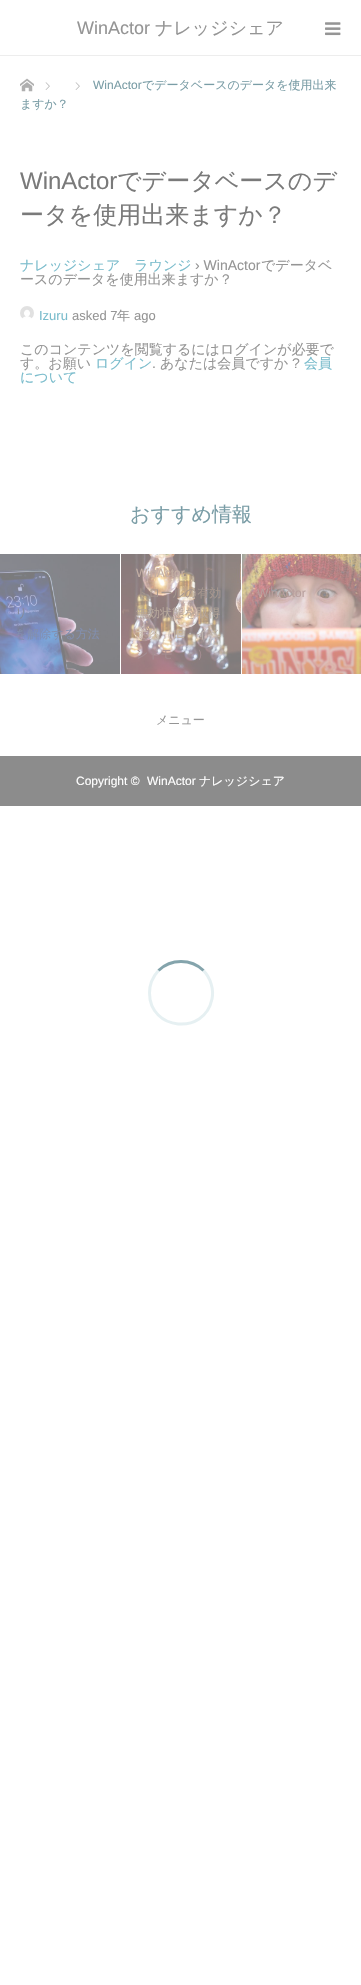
#include "include/core/SkBlurTypes.h"
#include "include/core/SkCanvas.h"
#include "include/core/SkData.h"
#include "include/core/SkFont.h"
#include "include/core/SkFontMgr.h"
#include "include/core/SkImage.h"
#include "include/core/SkMaskFilter.h"
#include "include/core/SkPaint.h"
#include "include/core/SkPathBuilder.h"
#include "include/core/SkTextBlob.h"
#include "include/effects/SkDashPathEffect.h"
#include "include/effects/SkGradientShader.h"
#include "include/utils/SkParsePath.h"

extern sk_sp<SkFontMgr> fontMgr;

void draw(SkCanvas* canvas) {
    SkPaint p;
    p.setAntiAlias(true);
    auto font = [&](const char* family, int weight, float size, bool italic = false) {
        SkFontStyle style(weight, SkFontStyle::kNormal_Width,
            italic ? SkFontStyle::kItalic_Slant : SkFontStyle::kUpright_Slant);
        SkFont result(fontMgr->matchFamilyStyle(family, style), size);
        result.setSubpixel(true);
        return result;
    };
    auto drawPhoto = [&](const char* path, float l, float t, float r, float b) {
        auto image = SkImages::DeferredFromEncodedData(SkData::MakeFromFileName(path));
        canvas->drawImageRect(image, SkRect::MakeLTRB(l, t, r, b), SkSamplingOptions());
    };
    canvas->clear(0xFFFFFFFF);
    p.setColor(0xFFEDEDED);
    canvas->drawRect(SkRect::MakeLTRB(0, 55, 361, 56), p);
    auto font1 = font("Liberation Sans", 400, 18);
    p.setColor(0xFF959595);
    canvas->drawString("WinActor", 77, 34, font1, p);
    auto font2 = font("WenQuanYi Zen Hei", 500, 18);
    canvas->drawString("ナレッジシェア", 155, 34, font2, p);
    drawPhoto("media/1.png", 325, 22, 341, 36);
    drawPhoto("media/2.png", 20, 78, 34, 92);
    drawPhoto("media/3.png", 75, 82, 80, 90);
    auto font3 = font("Liberation Sans", 400, 12);
    p.setColor(0xFF7A9DA6);
    canvas->drawString("WinActor", 93, 89, font3, p);
    auto font4 = font("WenQuanYi Zen Hei", 500, 12);
    canvas->drawString("でデータベースのデータを使用出来", 142, 89, font4, p);
    canvas->drawString("ますか？", 20, 108, font4, p);
    drawPhoto("media/3.png", 45, 82, 50, 90);
    auto font5 = font("Liberation Sans", 400, 24);
    p.setColor(0xFF7A7A7A);
    canvas->drawString("WinActor", 20, 189, font5, p);
    auto font6 = font("WenQuanYi Zen Hei", 500, 24);
    canvas->drawString("でデータベースのデ", 117, 189, font6, p);
    canvas->drawString("ータを使用出来ますか？", 20, 223, font6, p);
    auto font7 = font("WenQuanYi Zen Hei", 500, 14);
    p.setColor(0xFF7ABCCC);
    canvas->drawString("ナレッジシェア　ラウンジ", 20, 270, font7, p);
    auto font8 = font("Liberation Sans", 400, 14);
    p.setColor(0xFF959595);
    canvas->drawString("› WinActor", 195, 270, font8, p);
    canvas->drawString("でデータベ", 261, 270, font7, p);
    canvas->drawString("ースのデータを使用出来ますか？", 20, 284, font7, p);
    drawPhoto("media/4.png", 20, 306, 34, 319);
    auto font9 = font("Liberation Sans", 400, 13);
    p.setColor(0xFF7ABCCC);
    canvas->drawString("Izuru", 39, 320, font9, p);
    p.setColor(0xFF959595);
    canvas->drawString("asked 7", 72, 320, font9, p);
    auto font10 = font("WenQuanYi Zen Hei", 500, 13);
    canvas->drawString("年", 117, 320, font10, p);
    canvas->drawString("ago", 134, 320, font9, p);
    canvas->drawString("このコンテンツを閲覧するにはログインが必要で", 20, 354, font7, p);
    canvas->drawString("す。お願い", 20, 368, font7, p);
    p.setColor(0xFF7ABCCC);
    canvas->drawString("ログイン", 95, 368, font7, p);
    p.setColor(0xFF959595);
    canvas->drawString(".", 152, 368, font8, p);
    canvas->drawString("あなたは会員ですか", 160, 368, font7, p);
    canvas->drawString("?", 292, 368, font8, p);
    p.setColor(0xFF7ABCCC);
    canvas->drawString("会員", 304, 368, font7, p);
    canvas->drawString("について", 20, 382, font7, p);
    auto font11 = font("WenQuanYi Zen Hei", 500, 20);
    p.setColor(0xFF7A9DA6);
    canvas->drawString("おすすめ情報", 130, 521, font11, p);
    drawPhoto("media/5.png", 121, 554, 241, 674);
    p.setColor(0xFFC3AFA4);
    canvas->drawString("WinActor", 136, 577, font3, p);
    p.setColor(0xFFA5968E);
    canvas->drawString("トロールの有効", 136, 597, font4, p);
    p.setColor(0xFFB6A79B);
    canvas->drawString("無効状態を取得", 136, 617, font4, p);
    p.setColor(0xFFD1C3B7);
    canvas->drawString("する（", 136, 638, font4, p);
    p.setColor(0xFFC3B5A8);
    canvas->drawString("IE", 173, 638, font3, p);
    p.setColor(0xFFBFB5B0);
    canvas->drawString("・イベ", 184, 638, font4, p);
    p.setColor(0xFFA48D91);
    canvas->drawString("ントモ", 136, 658, font4, p);
    canvas->drawString("）", 197, 658, font4, p);
    drawPhoto("media/6.png", 242, 554, 361, 674);
    p.setColor(0xFFB89F9D);
    canvas->drawString("WinActor", 257, 597, font3, p);
    drawPhoto("media/7.png", 0, 554, 120, 674);
    p.setColor(0xFF848999);
    canvas->drawString("リ", 15, 617, font4, p);
    p.setColor(0xFF828FAF);
    canvas->drawString("を解除する方法", 15, 638, font4, p);
    p.setColor(0xFF959595);
    canvas->drawString("メニュー", 156, 724, font4, p);
    p.setColor(0xFF8C8C8C);
    canvas->drawRect(SkRect::MakeLTRB(0, 756, 361, 806), p);
    p.setColor(0xFFFFFFFF);
    canvas->drawString("Copyright ©", 76, 785, font3, p);
    canvas->drawString("WinActor", 147, 785, font3, p);
    canvas->drawString("ナレッジシェア", 199, 785, font4, p);
    p.setStyle(SkPaint::kStroke_Style);
    p.setStrokeWidth(3);
    p.setColor(0xFF84A4AC);
    canvas->drawPath(SkPathBuilder().moveTo(158.5f, 970.5f).cubicTo(171, 958.5f, 191, 958.5f, 203.5f, 970.5f).detach(), p);
    p.setColor(0x3384B3BE);
    canvas->drawPath(SkPathBuilder().moveTo(203.5f, 970.5f).cubicTo(210.5f, 978, 214, 989, 212, 999).cubicTo(204.5f, 1036, 149.5f, 1030.5f, 149.5f, 993).cubicTo(149.5f, 984.5f, 153, 976.5f, 158.5f, 970.5f).detach(), p);
}
